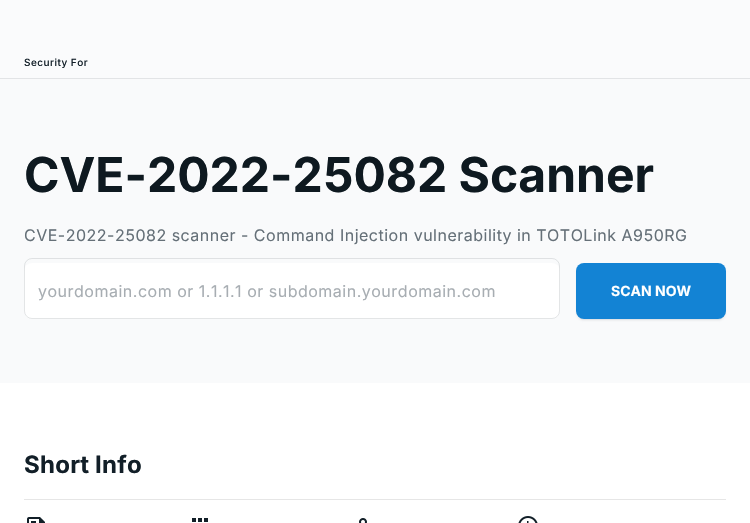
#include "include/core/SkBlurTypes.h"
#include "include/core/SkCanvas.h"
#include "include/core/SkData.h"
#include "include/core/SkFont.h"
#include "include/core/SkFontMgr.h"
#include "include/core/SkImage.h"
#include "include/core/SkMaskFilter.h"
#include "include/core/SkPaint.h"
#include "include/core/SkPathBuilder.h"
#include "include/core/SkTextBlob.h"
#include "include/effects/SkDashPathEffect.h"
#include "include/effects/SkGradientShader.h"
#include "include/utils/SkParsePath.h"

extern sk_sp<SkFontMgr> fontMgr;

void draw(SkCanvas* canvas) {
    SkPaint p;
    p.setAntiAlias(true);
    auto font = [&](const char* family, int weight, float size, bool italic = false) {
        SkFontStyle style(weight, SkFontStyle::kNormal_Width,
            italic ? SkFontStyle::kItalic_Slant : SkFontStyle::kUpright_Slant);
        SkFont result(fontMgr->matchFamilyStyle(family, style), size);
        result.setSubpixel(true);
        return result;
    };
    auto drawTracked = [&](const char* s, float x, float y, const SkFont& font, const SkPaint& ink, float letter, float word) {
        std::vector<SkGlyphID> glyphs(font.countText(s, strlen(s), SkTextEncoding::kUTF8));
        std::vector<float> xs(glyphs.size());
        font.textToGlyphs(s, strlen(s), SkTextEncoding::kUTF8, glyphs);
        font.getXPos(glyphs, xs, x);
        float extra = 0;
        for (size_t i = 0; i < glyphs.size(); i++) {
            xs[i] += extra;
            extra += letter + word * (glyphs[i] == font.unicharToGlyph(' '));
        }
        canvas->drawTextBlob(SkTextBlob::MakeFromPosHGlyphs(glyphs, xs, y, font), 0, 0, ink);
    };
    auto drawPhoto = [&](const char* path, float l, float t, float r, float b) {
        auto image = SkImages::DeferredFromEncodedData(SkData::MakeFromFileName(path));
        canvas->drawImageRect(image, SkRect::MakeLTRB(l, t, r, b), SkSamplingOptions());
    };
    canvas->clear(0xFFFFFFFF);
    p.setColor(0xFFFAFBFC);
    canvas->drawRect(SkRect::MakeLTRB(0, 0, 750, 78), p);
    p.setColor(0xFFE2E4E6);
    canvas->drawRect(SkRect::MakeLTRB(0, 78, 750, 79), p);
    auto font1 = font("Inter", 500, 10);
    p.setColor(0xFF121F28);
    drawTracked("Security For", 24, 66, font1, p, 0.5f, 0);
    p.setColor(0xFFF9FAFB);
    canvas->drawRect(SkRect::MakeLTRB(0, 79, 750, 383), p);
    auto font2 = font("Inter", 700, 48);
    p.setColor(0xFF0E1920);
    canvas->drawString("CVE-2022-25082 Scanner", 24, 192, font2, p);
    auto font3 = font("Inter", 400, 16);
    p.setColor(0xFF657078);
    drawTracked("CVE-2022-25082 scanner - Command Injection vulnerability in TOTOLink A950RG", 24, 241, font3, p, 0.5f, 0);
    p.setColor(0xFFFFFFFF);
    canvas->drawRoundRect(SkRect::MakeLTRB(24, 263, 560, 319), 8, 8, p);
    p.setStyle(SkPaint::kStroke_Style);
    p.setStrokeWidth(1);
    p.setColor(0x52A7ADB2);
    canvas->drawRoundRect(SkRect::MakeLTRB(24.5f, 258.5f, 559.5f, 318.5f), 7.5f, 7.5f, p);
    p.setStyle(SkPaint::kFill_Style);
    p.setColor(0xFFA7ADB2);
    drawTracked("yourdomain.com or 1.1.1.1 or subdomain.yourdomain.com", 38, 297, font3, p, 0.5f, 0);
    p.setColor(0x24A7ADB2);
    p.setMaskFilter(SkMaskFilter::MakeBlur(kNormal_SkBlurStyle, 1));
    canvas->drawRoundRect(SkRect::MakeLTRB(576, 265, 726, 321), 8, 8, p);
    p.setMaskFilter(nullptr);
    p.setColor(0x33A7ADB2);
    p.setMaskFilter(SkMaskFilter::MakeBlur(kNormal_SkBlurStyle, 0.5f));
    canvas->drawRoundRect(SkRect::MakeLTRB(578, 268, 724, 320), 6, 6, p);
    p.setMaskFilter(nullptr);
    p.setColor(0xFF1383D4);
    canvas->drawRoundRect(SkRect::MakeLTRB(576, 263, 726, 319), 8, 8, p);
    auto font4 = font("Inter", 700, 14);
    p.setColor(0xFFFFFFFF);
    canvas->drawString("SCAN NOW", 611, 296, font4, p);
    auto font5 = font("Inter", 700, 24);
    p.setColor(0xFF121F28);
    drawTracked("Short Info", 24, 473, font5, p, 0.25f, 0);
    p.setColor(0xFFE6E6E6);
    canvas->drawRect(SkRect::MakeLTRB(24, 499, 726, 500), p);
    drawPhoto("media/1.png", 27, 517, 45, 523);
    drawPhoto("media/2.png", 192, 518, 208, 522);
    drawPhoto("media/3.png", 359, 518, 367, 523);
    drawPhoto("media/4.png", 518, 516, 538, 523);
}
